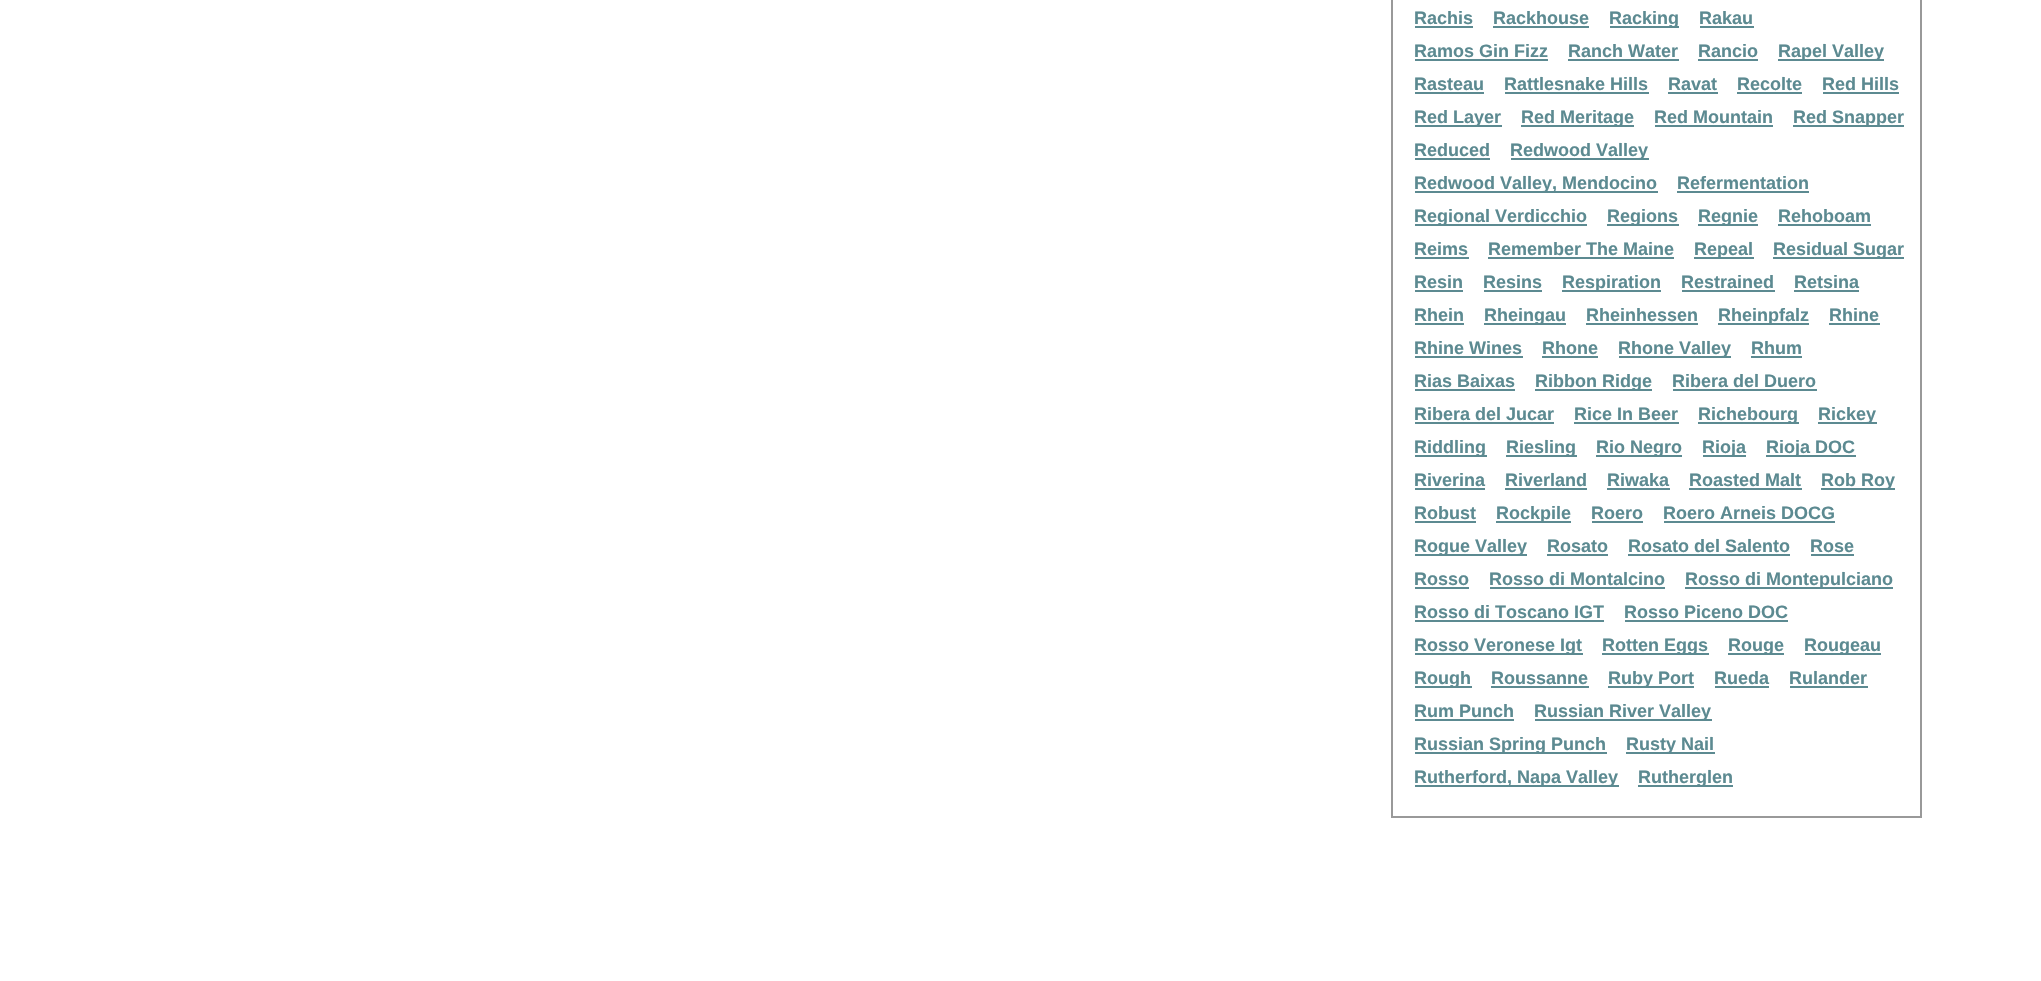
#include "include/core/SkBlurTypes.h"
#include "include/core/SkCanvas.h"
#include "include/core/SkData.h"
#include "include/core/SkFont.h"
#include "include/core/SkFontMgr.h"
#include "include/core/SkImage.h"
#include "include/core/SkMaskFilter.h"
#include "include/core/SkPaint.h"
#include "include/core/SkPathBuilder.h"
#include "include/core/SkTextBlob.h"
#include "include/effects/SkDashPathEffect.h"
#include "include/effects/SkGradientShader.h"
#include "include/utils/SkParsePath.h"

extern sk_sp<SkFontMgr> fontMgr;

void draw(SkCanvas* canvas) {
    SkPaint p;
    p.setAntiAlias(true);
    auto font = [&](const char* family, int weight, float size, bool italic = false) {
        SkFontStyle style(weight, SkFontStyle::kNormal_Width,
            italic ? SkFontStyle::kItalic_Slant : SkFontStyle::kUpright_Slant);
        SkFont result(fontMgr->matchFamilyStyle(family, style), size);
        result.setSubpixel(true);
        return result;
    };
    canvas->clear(0xFFFFFFFF);
    {
        const struct { float l, t, r, b; SkColor color; } items[] = {
            {1920, 0, 1922, 818, 0xFF999999},
            {1391, 816, 1922, 818, 0xFF999999},
            {1391, 0, 1393, 818, 0xFF999999},
        };
        for (auto [l, t, r, b, color] : items) {
            p.setColor(color);
            canvas->drawRect(SkRect::MakeLTRB(l, t, r, b), p);
        }
    }
    auto font1 = font("Liberation Sans", 700, 18);
    p.setColor(0xFF5C8A91);
    canvas->drawString("Rachis", 1414, 24, font1, p);
    canvas->drawRect(SkRect::MakeLTRB(1415, 26, 1473, 28), p);
    canvas->drawString("Rackhouse", 1493, 24, font1, p);
    canvas->drawRect(SkRect::MakeLTRB(1493, 26, 1589, 28), p);
    canvas->drawRect(SkRect::MakeLTRB(1610, 26, 1679, 28), p);
    canvas->drawString("Racking", 1609, 24, font1, p);
    canvas->drawString("Rakau", 1699, 24, font1, p);
    canvas->drawRect(SkRect::MakeLTRB(1700, 26, 1754, 28), p);
    canvas->drawString("Ramos Gin Fizz", 1414, 57, font1, p);
    canvas->drawRect(SkRect::MakeLTRB(1415, 59, 1548, 61), p);
    canvas->drawString("Ranch Water", 1568, 57, font1, p);
    canvas->drawRect(SkRect::MakeLTRB(1568, 59, 1679, 61), p);
    canvas->drawString("Rancio", 1698, 57, font1, p);
    canvas->drawRect(SkRect::MakeLTRB(1698, 59, 1758, 61), p);
    canvas->drawRect(SkRect::MakeLTRB(1778, 59, 1884, 61), p);
    canvas->drawString("Rapel Valley", 1778, 57, font1, p);
    canvas->drawString("Rasteau", 1414, 90, font1, p);
    canvas->drawRect(SkRect::MakeLTRB(1415, 92, 1484, 94), p);
    canvas->drawString("Rattlesnake Hills", 1504, 90, font1, p);
    canvas->drawRect(SkRect::MakeLTRB(1505, 92, 1649, 94), p);
    canvas->drawString("Ravat", 1668, 90, font1, p);
    canvas->drawRect(SkRect::MakeLTRB(1668, 92, 1718, 94), p);
    canvas->drawString("Recolte", 1737, 90, font1, p);
    canvas->drawRect(SkRect::MakeLTRB(1737, 92, 1802, 94), p);
    canvas->drawString("Red Hills", 1822, 90, font1, p);
    canvas->drawRect(SkRect::MakeLTRB(1823, 92, 1899, 94), p);
    canvas->drawRect(SkRect::MakeLTRB(1415, 125, 1502, 127), p);
    canvas->drawString("Red Layer", 1414, 123, font1, p);
    canvas->drawRect(SkRect::MakeLTRB(1521, 125, 1634, 127), p);
    canvas->drawString("Red Meritage", 1521, 123, font1, p);
    canvas->drawString("Red Mountain", 1654, 123, font1, p);
    canvas->drawRect(SkRect::MakeLTRB(1655, 125, 1773, 127), p);
    canvas->drawRect(SkRect::MakeLTRB(1793, 125, 1904, 127), p);
    canvas->drawString("Red Snapper", 1793, 123, font1, p);
    canvas->drawString("Reduced", 1414, 156, font1, p);
    canvas->drawRect(SkRect::MakeLTRB(1415, 158, 1490, 160), p);
    canvas->drawRect(SkRect::MakeLTRB(1511, 158, 1649, 160), p);
    canvas->drawString("Redwood Valley", 1510, 156, font1, p);
    canvas->drawRect(SkRect::MakeLTRB(1415, 191, 1658, 193), p);
    canvas->drawString("Redwood Valley, Mendocino", 1414, 189, font1, p);
    canvas->drawString("Refermentation", 1677, 189, font1, p);
    canvas->drawRect(SkRect::MakeLTRB(1677, 191, 1809, 193), p);
    canvas->drawRect(SkRect::MakeLTRB(1415, 224, 1587, 226), p);
    canvas->drawString("Regional Verdicchio", 1414, 222, font1, p);
    canvas->drawRect(SkRect::MakeLTRB(1607, 224, 1679, 226), p);
    canvas->drawString("Regions", 1607, 222, font1, p);
    canvas->drawRect(SkRect::MakeLTRB(1698, 224, 1758, 226), p);
    canvas->drawString("Regnie", 1698, 222, font1, p);
    canvas->drawString("Rehoboam", 1778, 222, font1, p);
    canvas->drawRect(SkRect::MakeLTRB(1778, 224, 1871, 226), p);
    canvas->drawString("Reims", 1414, 255, font1, p);
    canvas->drawRect(SkRect::MakeLTRB(1415, 257, 1469, 259), p);
    canvas->drawString("Remember The Maine", 1488, 255, font1, p);
    canvas->drawRect(SkRect::MakeLTRB(1488, 257, 1674, 259), p);
    canvas->drawRect(SkRect::MakeLTRB(1694, 257, 1754, 259), p);
    canvas->drawString("Repeal", 1694, 255, font1, p);
    canvas->drawRect(SkRect::MakeLTRB(1773, 257, 1904, 259), p);
    canvas->drawString("Residual Sugar", 1773, 255, font1, p);
    canvas->drawString("Resin", 1414, 288, font1, p);
    canvas->drawRect(SkRect::MakeLTRB(1415, 290, 1463, 292), p);
    canvas->drawString("Resins", 1483, 288, font1, p);
    canvas->drawRect(SkRect::MakeLTRB(1484, 290, 1542, 292), p);
    canvas->drawRect(SkRect::MakeLTRB(1562, 290, 1661, 292), p);
    canvas->drawString("Respiration", 1562, 288, font1, p);
    canvas->drawString("Restrained", 1681, 288, font1, p);
    canvas->drawRect(SkRect::MakeLTRB(1682, 290, 1775, 292), p);
    canvas->drawString("Retsina", 1794, 288, font1, p);
    canvas->drawRect(SkRect::MakeLTRB(1794, 290, 1859, 292), p);
    canvas->drawString("Rhein", 1414, 321, font1, p);
    canvas->drawRect(SkRect::MakeLTRB(1415, 323, 1464, 325), p);
    canvas->drawRect(SkRect::MakeLTRB(1484, 323, 1566, 325), p);
    canvas->drawString("Rheingau", 1484, 321, font1, p);
    canvas->drawString("Rheinhessen", 1586, 321, font1, p);
    canvas->drawRect(SkRect::MakeLTRB(1586, 323, 1698, 325), p);
    canvas->drawRect(SkRect::MakeLTRB(1718, 323, 1809, 325), p);
    canvas->drawString("Rheinpfalz", 1718, 321, font1, p);
    canvas->drawString("Rhine", 1829, 321, font1, p);
    canvas->drawRect(SkRect::MakeLTRB(1829, 323, 1880, 325), p);
    canvas->drawString("Rhine Wines", 1414, 354, font1, p);
    canvas->drawRect(SkRect::MakeLTRB(1415, 356, 1523, 358), p);
    canvas->drawString("Rhone", 1542, 354, font1, p);
    canvas->drawRect(SkRect::MakeLTRB(1542, 356, 1598, 358), p);
    canvas->drawRect(SkRect::MakeLTRB(1619, 356, 1731, 358), p);
    canvas->drawString("Rhone Valley", 1618, 354, font1, p);
    canvas->drawString("Rhum", 1751, 354, font1, p);
    canvas->drawRect(SkRect::MakeLTRB(1751, 356, 1802, 358), p);
    canvas->drawString("Rias Baixas", 1414, 387, font1, p);
    canvas->drawRect(SkRect::MakeLTRB(1415, 389, 1515, 391), p);
    canvas->drawRect(SkRect::MakeLTRB(1535, 389, 1652, 391), p);
    canvas->drawString("Ribbon Ridge", 1535, 387, font1, p);
    canvas->drawString("Ribera del Duero", 1672, 387, font1, p);
    canvas->drawRect(SkRect::MakeLTRB(1673, 389, 1817, 391), p);
    canvas->drawString("Ribera del Jucar", 1414, 420, font1, p);
    canvas->drawRect(SkRect::MakeLTRB(1415, 422, 1554, 424), p);
    canvas->drawString("Rice In Beer", 1574, 420, font1, p);
    canvas->drawRect(SkRect::MakeLTRB(1574, 422, 1679, 424), p);
    canvas->drawRect(SkRect::MakeLTRB(1698, 422, 1799, 424), p);
    canvas->drawString("Richebourg", 1698, 420, font1, p);
    canvas->drawRect(SkRect::MakeLTRB(1818, 422, 1877, 424), p);
    canvas->drawString("Rickey", 1818, 420, font1, p);
    canvas->drawRect(SkRect::MakeLTRB(1415, 455, 1487, 457), p);
    canvas->drawString("Riddling", 1414, 453, font1, p);
    canvas->drawRect(SkRect::MakeLTRB(1506, 455, 1577, 457), p);
    canvas->drawString("Riesling", 1506, 453, font1, p);
    canvas->drawRect(SkRect::MakeLTRB(1596, 455, 1682, 457), p);
    canvas->drawString("Rio Negro", 1596, 453, font1, p);
    canvas->drawRect(SkRect::MakeLTRB(1703, 455, 1746, 457), p);
    canvas->drawString("Rioja", 1702, 453, font1, p);
    canvas->drawRect(SkRect::MakeLTRB(1766, 455, 1856, 457), p);
    canvas->drawString("Rioja DOC", 1766, 453, font1, p);
    canvas->drawString("Riverina", 1414, 486, font1, p);
    canvas->drawRect(SkRect::MakeLTRB(1415, 488, 1485, 490), p);
    canvas->drawString("Riverland", 1505, 486, font1, p);
    canvas->drawRect(SkRect::MakeLTRB(1505, 488, 1587, 490), p);
    canvas->drawString("Riwaka", 1607, 486, font1, p);
    canvas->drawRect(SkRect::MakeLTRB(1607, 488, 1670, 490), p);
    canvas->drawString("Roasted Malt", 1689, 486, font1, p);
    canvas->drawRect(SkRect::MakeLTRB(1689, 488, 1802, 490), p);
    canvas->drawRect(SkRect::MakeLTRB(1821, 488, 1895, 490), p);
    canvas->drawString("Rob Roy", 1821, 486, font1, p);
    canvas->drawString("Robust", 1414, 519, font1, p);
    canvas->drawRect(SkRect::MakeLTRB(1415, 521, 1476, 523), p);
    canvas->drawRect(SkRect::MakeLTRB(1496, 521, 1571, 523), p);
    canvas->drawString("Rockpile", 1496, 519, font1, p);
    canvas->drawString("Roero", 1591, 519, font1, p);
    canvas->drawRect(SkRect::MakeLTRB(1592, 521, 1643, 523), p);
    canvas->drawString("Roero Arneis DOCG", 1663, 519, font1, p);
    canvas->drawRect(SkRect::MakeLTRB(1664, 521, 1835, 523), p);
    canvas->drawRect(SkRect::MakeLTRB(1415, 554, 1527, 556), p);
    canvas->drawString("Rogue Valley", 1414, 552, font1, p);
    canvas->drawString("Rosato", 1547, 552, font1, p);
    canvas->drawRect(SkRect::MakeLTRB(1547, 554, 1608, 556), p);
    canvas->drawString("Rosato del Salento", 1628, 552, font1, p);
    canvas->drawRect(SkRect::MakeLTRB(1628, 554, 1790, 556), p);
    canvas->drawString("Rose", 1810, 552, font1, p);
    canvas->drawRect(SkRect::MakeLTRB(1811, 554, 1854, 556), p);
    canvas->drawString("Rosso", 1414, 585, font1, p);
    canvas->drawRect(SkRect::MakeLTRB(1415, 587, 1469, 589), p);
    canvas->drawString("Rosso di Montalcino", 1489, 585, font1, p);
    canvas->drawRect(SkRect::MakeLTRB(1490, 587, 1665, 589), p);
    canvas->drawRect(SkRect::MakeLTRB(1685, 587, 1893, 589), p);
    canvas->drawString("Rosso di Montepulciano", 1685, 585, font1, p);
    canvas->drawString("Rosso di Toscano IGT", 1414, 618, font1, p);
    canvas->drawRect(SkRect::MakeLTRB(1415, 620, 1604, 622), p);
    canvas->drawString("Rosso Piceno DOC", 1624, 618, font1, p);
    canvas->drawRect(SkRect::MakeLTRB(1625, 620, 1788, 622), p);
    canvas->drawRect(SkRect::MakeLTRB(1415, 653, 1583, 655), p);
    canvas->drawString("Rosso Veronese Igt", 1414, 651, font1, p);
    canvas->drawRect(SkRect::MakeLTRB(1602, 653, 1709, 655), p);
    canvas->drawString("Rotten Eggs", 1602, 651, font1, p);
    canvas->drawRect(SkRect::MakeLTRB(1728, 653, 1784, 655), p);
    canvas->drawString("Rouge", 1728, 651, font1, p);
    canvas->drawRect(SkRect::MakeLTRB(1805, 653, 1881, 655), p);
    canvas->drawString("Rougeau", 1804, 651, font1, p);
    canvas->drawRect(SkRect::MakeLTRB(1415, 686, 1472, 688), p);
    canvas->drawString("Rough", 1414, 684, font1, p);
    canvas->drawString("Roussanne", 1491, 684, font1, p);
    canvas->drawRect(SkRect::MakeLTRB(1491, 686, 1589, 688), p);
    canvas->drawRect(SkRect::MakeLTRB(1608, 686, 1694, 688), p);
    canvas->drawString("Ruby Port", 1608, 684, font1, p);
    canvas->drawString("Rueda", 1714, 684, font1, p);
    canvas->drawRect(SkRect::MakeLTRB(1715, 686, 1769, 688), p);
    canvas->drawString("Rulander", 1789, 684, font1, p);
    canvas->drawRect(SkRect::MakeLTRB(1790, 686, 1868, 688), p);
    canvas->drawString("Rum Punch", 1414, 717, font1, p);
    canvas->drawRect(SkRect::MakeLTRB(1415, 719, 1514, 721), p);
    canvas->drawRect(SkRect::MakeLTRB(1535, 719, 1712, 721), p);
    canvas->drawString("Russian River Valley", 1534, 717, font1, p);
    canvas->drawRect(SkRect::MakeLTRB(1415, 752, 1607, 754), p);
    canvas->drawString("Russian Spring Punch", 1414, 750, font1, p);
    canvas->drawRect(SkRect::MakeLTRB(1626, 752, 1715, 754), p);
    canvas->drawString("Rusty Nail", 1626, 750, font1, p);
    canvas->drawRect(SkRect::MakeLTRB(1415, 785, 1619, 787), p);
    canvas->drawString("Rutherford, Napa Valley", 1414, 783, font1, p);
    canvas->drawRect(SkRect::MakeLTRB(1638, 785, 1733, 787), p);
    canvas->drawString("Rutherglen", 1638, 783, font1, p);
}
